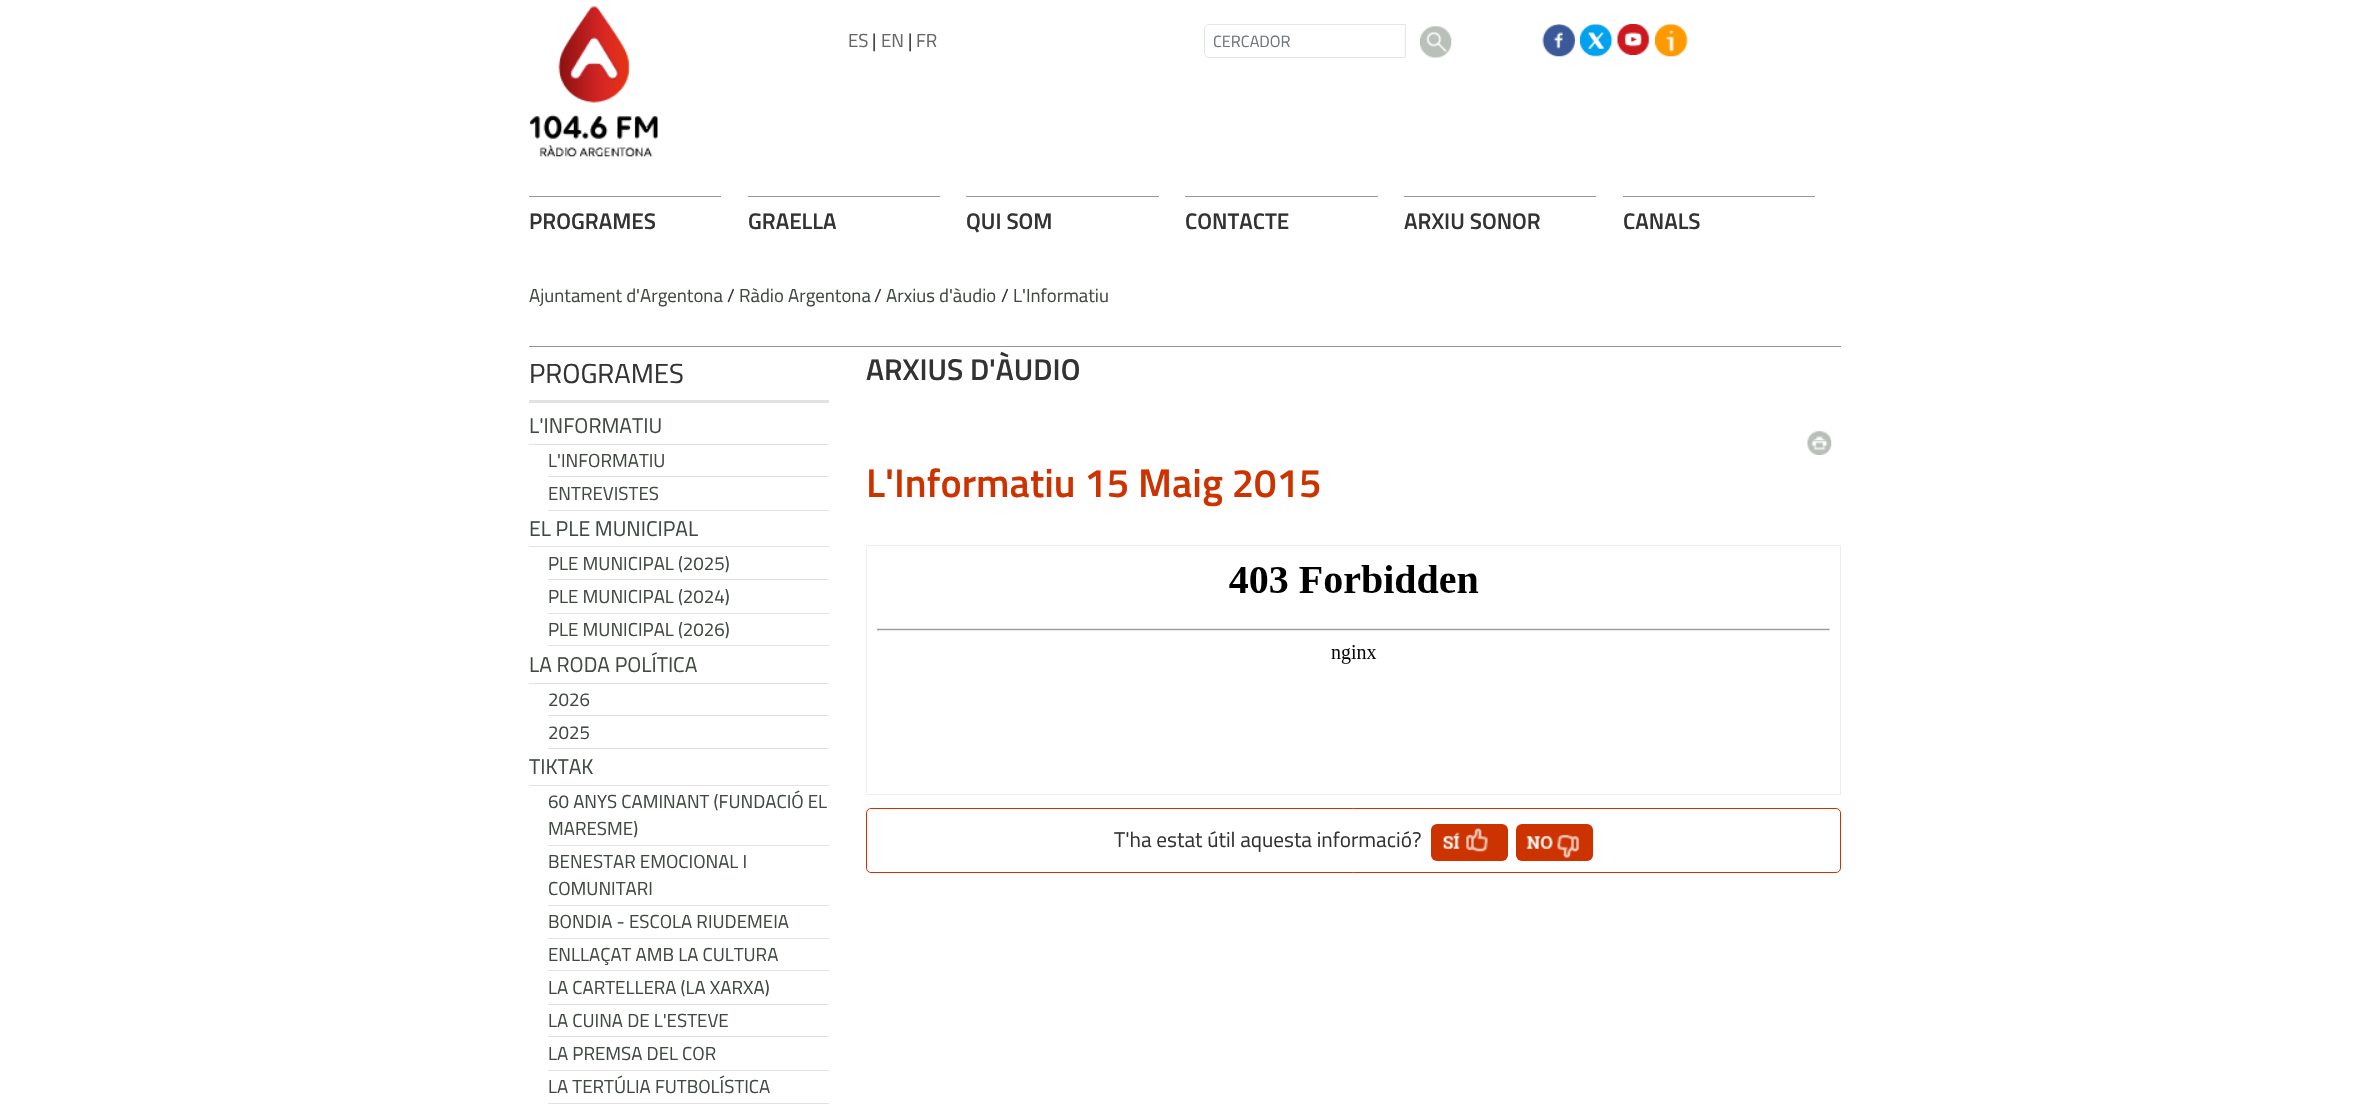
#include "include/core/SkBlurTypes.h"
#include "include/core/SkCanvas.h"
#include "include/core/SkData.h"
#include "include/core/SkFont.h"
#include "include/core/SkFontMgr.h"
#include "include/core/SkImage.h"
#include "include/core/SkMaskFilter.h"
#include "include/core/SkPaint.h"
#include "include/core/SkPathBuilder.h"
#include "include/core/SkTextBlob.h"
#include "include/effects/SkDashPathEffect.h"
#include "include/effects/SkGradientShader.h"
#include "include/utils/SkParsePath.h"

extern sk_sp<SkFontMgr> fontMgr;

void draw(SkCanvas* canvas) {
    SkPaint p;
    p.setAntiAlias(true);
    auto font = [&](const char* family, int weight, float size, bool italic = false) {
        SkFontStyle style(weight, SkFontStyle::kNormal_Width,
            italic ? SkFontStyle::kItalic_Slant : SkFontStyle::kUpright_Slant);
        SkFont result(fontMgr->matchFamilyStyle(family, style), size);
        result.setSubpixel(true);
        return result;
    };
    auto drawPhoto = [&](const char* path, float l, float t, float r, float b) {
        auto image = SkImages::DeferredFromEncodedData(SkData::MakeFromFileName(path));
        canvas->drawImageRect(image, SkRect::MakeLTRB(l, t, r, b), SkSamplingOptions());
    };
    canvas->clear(0xFFFFFFFF);
    drawPhoto("media/1.png", 529, 6, 658, 157);
    auto font1 = font("Titillium Web", 400, 18.75f);
    p.setColor(0xFF666666);
    canvas->drawString("ES", 848, 47, font1, p);
    p.setColor(0xFF333333);
    canvas->drawString("|", 872, 47, font1, p);
    p.setColor(0xFF666666);
    canvas->drawString("EN", 881, 47, font1, p);
    p.setColor(0xFF333333);
    canvas->drawString("|", 908, 47, font1, p);
    p.setColor(0xFF666666);
    canvas->drawString("FR", 916, 47, font1, p);
    p.setStyle(SkPaint::kStroke_Style);
    p.setStrokeWidth(1);
    p.setColor(0xFFE3E6E4);
    canvas->drawPath(SkPathBuilder().moveTo(1209, 24.5f).lineTo(1405.5f, 24.5f).lineTo(1405.5f, 57.5f).lineTo(1209, 57.5f).cubicTo(1206.5f, 57.5f, 1204.5f, 55.5f, 1204.5f, 53).lineTo(1204.5f, 29).cubicTo(1204.5f, 26.5f, 1206.5f, 24.5f, 1209, 24.5f).close().detach(), p);
    auto font2 = font("Titillium Web", 400, 16.25f);
    p.setStyle(SkPaint::kFill_Style);
    p.setColor(0xFF6C757D);
    canvas->drawString("CERCADOR", 1213, 47, font2, p);
    drawPhoto("media/2.png", 1420, 26, 1452, 58);
    drawPhoto("media/3.png", 1542, 23, 1575, 57);
    p.setStyle(SkPaint::kStroke_Style);
    p.setColor(0xFFFFFFFF);
    canvas->drawRoundRect(SkRect::MakeLTRB(1541.5f, 23.5f, 1578.5f, 58.5f), 4.5f, 4.5f, p);
    drawPhoto("media/4.png", 1580, 23, 1613, 57);
    canvas->drawRoundRect(SkRect::MakeLTRB(1579.5f, 23.5f, 1615.5f, 58.5f), 4.5f, 4.5f, p);
    drawPhoto("media/5.png", 1617, 24, 1649, 55);
    drawPhoto("media/6.png", 1655, 24, 1688, 57);
    p.setStyle(SkPaint::kFill_Style);
    p.setColor(0xFF909A91);
    canvas->drawRect(SkRect::MakeLTRB(529, 196, 721, 197), p);
    auto font3 = font("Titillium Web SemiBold", 600, 22.5f);
    p.setColor(0xFF333333);
    canvas->drawString("PROGRAMES", 529, 229, font3, p);
    p.setColor(0xFF909A91);
    canvas->drawRect(SkRect::MakeLTRB(748, 196, 940, 197), p);
    p.setColor(0xFF333333);
    canvas->drawString("GRAELLA", 748, 229, font3, p);
    p.setColor(0xFF909A91);
    canvas->drawRect(SkRect::MakeLTRB(966, 196, 1159, 197), p);
    p.setColor(0xFF333333);
    canvas->drawString("QUI SOM", 966, 229, font3, p);
    p.setColor(0xFF909A91);
    canvas->drawRect(SkRect::MakeLTRB(1185, 196, 1378, 197), p);
    p.setColor(0xFF333333);
    canvas->drawString("CONTACTE", 1185, 229, font3, p);
    p.setColor(0xFF909A91);
    canvas->drawRect(SkRect::MakeLTRB(1404, 196, 1596, 197), p);
    p.setColor(0xFF333333);
    canvas->drawString("ARXIU SONOR", 1404, 229, font3, p);
    p.setColor(0xFF909A91);
    canvas->drawRect(SkRect::MakeLTRB(1623, 196, 1815, 197), p);
    p.setColor(0xFF333333);
    canvas->drawString("CANALS", 1623, 229, font3, p);
    p.setColor(0xFF414942);
    canvas->drawString("Ajuntament d'Argentona", 529, 302, font1, p);
    p.setColor(0xFF333333);
    canvas->drawString("/", 727, 302, font1, p);
    p.setColor(0xFF414942);
    canvas->drawString("Ràdio Argentona", 739, 302, font1, p);
    p.setColor(0xFF333333);
    canvas->drawString("/", 874, 302, font1, p);
    p.setColor(0xFF414942);
    canvas->drawString("Arxius d'àudio", 886, 302, font1, p);
    p.setColor(0xFF333333);
    canvas->drawString("/", 1001, 302, font1, p);
    p.setColor(0xFF414942);
    canvas->drawString("L'Informatiu", 1013, 302, font1, p);
    p.setColor(0xFF909A91);
    canvas->drawRect(SkRect::MakeLTRB(529, 346, 1841, 347), p);
    p.setColor(0xFFE2E2E2);
    canvas->drawRect(SkRect::MakeLTRB(529, 400, 829, 403), p);
    auto font4 = font("Titillium Web", 400, 27.5f);
    p.setColor(0xFF333333);
    canvas->drawString("PROGRAMES", 529, 383, font4, p);
    p.setColor(0xFFE2E2E2);
    canvas->drawRect(SkRect::MakeLTRB(529, 444, 829, 445), p);
    auto font5 = font("Titillium Web", 400, 21.25f);
    p.setColor(0xFF414942);
    canvas->drawString("L'INFORMATIU", 529, 433, font5, p);
    p.setColor(0xFFE2E2E2);
    canvas->drawRect(SkRect::MakeLTRB(548, 476, 829, 477), p);
    p.setColor(0xFF414942);
    canvas->drawString("L'INFORMATIU", 548, 467, font1, p);
    p.setColor(0xFFE2E2E2);
    canvas->drawRect(SkRect::MakeLTRB(548, 510, 829, 511), p);
    p.setColor(0xFF414942);
    canvas->drawString("ENTREVISTES", 548, 500, font1, p);
    p.setColor(0xFFE2E2E2);
    canvas->drawRect(SkRect::MakeLTRB(529, 546, 829, 547), p);
    p.setColor(0xFF414942);
    canvas->drawString("EL PLE MUNICIPAL", 529, 536, font5, p);
    p.setColor(0xFFE2E2E2);
    canvas->drawRect(SkRect::MakeLTRB(548, 579, 829, 580), p);
    p.setColor(0xFF414942);
    canvas->drawString("PLE MUNICIPAL (2025)", 548, 570, font1, p);
    p.setColor(0xFFE2E2E2);
    canvas->drawRect(SkRect::MakeLTRB(548, 613, 829, 614), p);
    p.setColor(0xFF414942);
    canvas->drawString("PLE MUNICIPAL (2024)", 548, 603, font1, p);
    p.setColor(0xFFE2E2E2);
    canvas->drawRect(SkRect::MakeLTRB(548, 645, 829, 646), p);
    p.setColor(0xFF414942);
    canvas->drawString("PLE MUNICIPAL (2026)", 548, 636, font1, p);
    p.setColor(0xFFE2E2E2);
    canvas->drawRect(SkRect::MakeLTRB(529, 683, 829, 684), p);
    p.setColor(0xFF414942);
    canvas->drawString("LA RODA POLÍTICA", 529, 672, font5, p);
    p.setColor(0xFFE2E2E2);
    canvas->drawRect(SkRect::MakeLTRB(548, 715, 829, 716), p);
    p.setColor(0xFF414942);
    canvas->drawString("2026", 548, 706, font1, p);
    p.setColor(0xFFE2E2E2);
    canvas->drawRect(SkRect::MakeLTRB(548, 748, 829, 749), p);
    p.setColor(0xFF414942);
    canvas->drawString("2025", 548, 739, font1, p);
    p.setColor(0xFFE2E2E2);
    canvas->drawRect(SkRect::MakeLTRB(529, 785, 829, 786), p);
    p.setColor(0xFF414942);
    canvas->drawString("TIKTAK", 529, 774, font5, p);
    p.setColor(0xFFE2E2E2);
    canvas->drawRect(SkRect::MakeLTRB(548, 845, 829, 846), p);
    p.setColor(0xFF414942);
    canvas->drawString("60 ANYS CAMINANT (FUNDACIÓ EL", 548, 808, font1, p);
    canvas->drawString("MARESME)", 548, 835, font1, p);
    p.setColor(0xFFE2E2E2);
    canvas->drawRect(SkRect::MakeLTRB(548, 905, 829, 906), p);
    p.setColor(0xFF414942);
    canvas->drawString("BENESTAR EMOCIONAL I", 548, 868, font1, p);
    canvas->drawString("COMUNITARI", 548, 895, font1, p);
    p.setColor(0xFFE2E2E2);
    canvas->drawRect(SkRect::MakeLTRB(548, 938, 829, 939), p);
    p.setColor(0xFF414942);
    canvas->drawString("BONDIA - ESCOLA RIUDEMEIA", 548, 928, font1, p);
    p.setColor(0xFFE2E2E2);
    canvas->drawRect(SkRect::MakeLTRB(548, 970, 829, 971), p);
    p.setColor(0xFF414942);
    canvas->drawString("ENLLAÇAT AMB LA CULTURA", 548, 961, font1, p);
    p.setColor(0xFFE2E2E2);
    canvas->drawRect(SkRect::MakeLTRB(548, 1004, 829, 1005), p);
    p.setColor(0xFF414942);
    canvas->drawString("LA CARTELLERA (LA XARXA)", 548, 994, font1, p);
    p.setColor(0xFFE2E2E2);
    canvas->drawRect(SkRect::MakeLTRB(548, 1036, 829, 1037), p);
    p.setColor(0xFF414942);
    canvas->drawString("LA CUINA DE L'ESTEVE", 548, 1027, font1, p);
    p.setColor(0xFFE2E2E2);
    canvas->drawRect(SkRect::MakeLTRB(548, 1070, 829, 1071), p);
    p.setColor(0xFF414942);
    canvas->drawString("LA PREMSA DEL COR", 548, 1060, font1, p);
    p.setColor(0xFFE2E2E2);
    canvas->drawRect(SkRect::MakeLTRB(548, 1103, 829, 1104), p);
    p.setColor(0xFF414942);
    canvas->drawString("LA TERTÚLIA FUTBOLÍSTICA", 548, 1093, font1, p);
    auto font6 = font("Titillium Web SemiBold", 600, 30);
    p.setColor(0xFF333333);
    canvas->drawString("ARXIUS D'ÀUDIO", 866, 380, font6, p);
    drawPhoto("media/7.png", 1807, 431, 1832, 455);
    auto font7 = font("Titillium Web SemiBold", 600, 40);
    p.setColor(0xFFCC3300);
    canvas->drawString("L'Informatiu 15 Maig 2015", 866, 497, font7, p);
    p.setStyle(SkPaint::kStroke_Style);
    p.setColor(0xFFEEEEEE);
    canvas->drawRect(SkRect::MakeLTRB(866.5f, 545.5f, 1840.5f, 794.5f), p);
    drawPhoto("media/8.png", 877, 565, 1830, 664);
    p.setColor(0xFFCC3300);
    canvas->drawRoundRect(SkRect::MakeLTRB(866.5f, 808.5f, 1840.5f, 872.5f), 4.5f, 4.5f, p);
    p.setStyle(SkPaint::kFill_Style);
    p.setColor(0xFF333333);
    canvas->drawString("T'ha estat útil aquesta informació?", 1114, 847, font5, p);
    p.setColor(0xFFCC3300);
    canvas->drawRoundRect(SkRect::MakeLTRB(1431, 824, 1508, 861), 6, 6, p);
    drawPhoto("media/9.png", 1443, 828, 1488, 852);
    canvas->drawRoundRect(SkRect::MakeLTRB(1516, 824, 1593, 861), 6, 6, p);
    drawPhoto("media/10.png", 1526, 834, 1580, 859);
}
